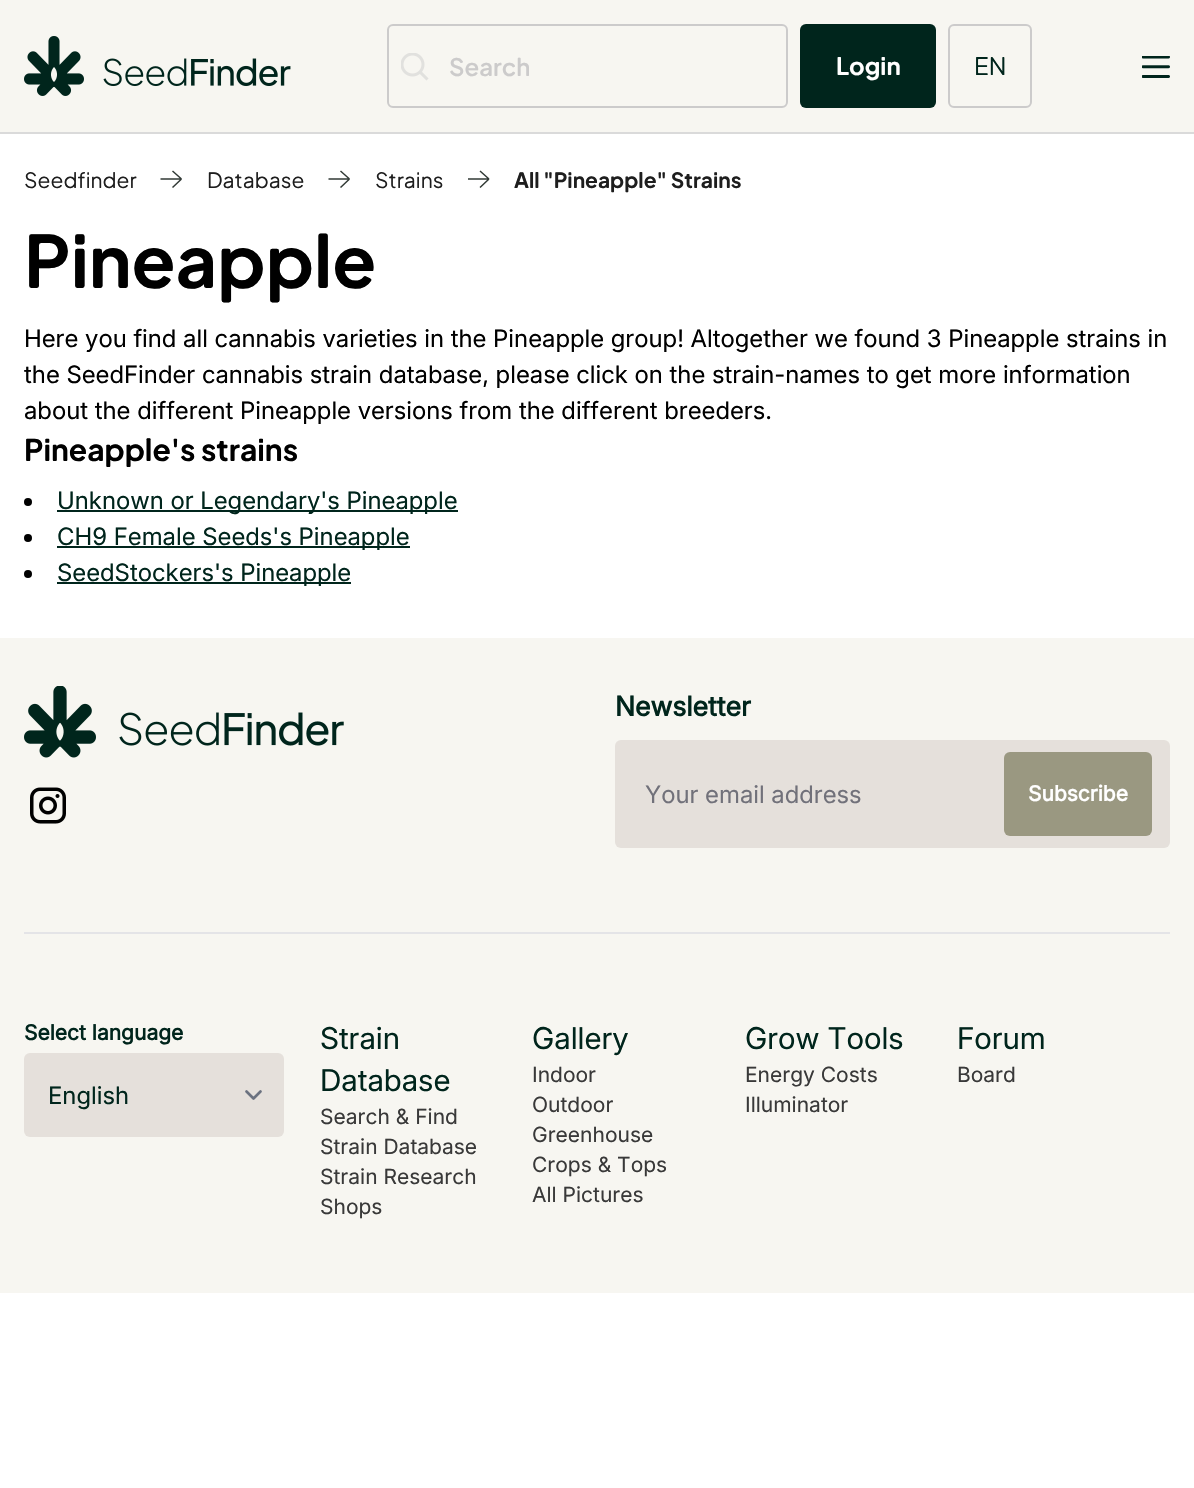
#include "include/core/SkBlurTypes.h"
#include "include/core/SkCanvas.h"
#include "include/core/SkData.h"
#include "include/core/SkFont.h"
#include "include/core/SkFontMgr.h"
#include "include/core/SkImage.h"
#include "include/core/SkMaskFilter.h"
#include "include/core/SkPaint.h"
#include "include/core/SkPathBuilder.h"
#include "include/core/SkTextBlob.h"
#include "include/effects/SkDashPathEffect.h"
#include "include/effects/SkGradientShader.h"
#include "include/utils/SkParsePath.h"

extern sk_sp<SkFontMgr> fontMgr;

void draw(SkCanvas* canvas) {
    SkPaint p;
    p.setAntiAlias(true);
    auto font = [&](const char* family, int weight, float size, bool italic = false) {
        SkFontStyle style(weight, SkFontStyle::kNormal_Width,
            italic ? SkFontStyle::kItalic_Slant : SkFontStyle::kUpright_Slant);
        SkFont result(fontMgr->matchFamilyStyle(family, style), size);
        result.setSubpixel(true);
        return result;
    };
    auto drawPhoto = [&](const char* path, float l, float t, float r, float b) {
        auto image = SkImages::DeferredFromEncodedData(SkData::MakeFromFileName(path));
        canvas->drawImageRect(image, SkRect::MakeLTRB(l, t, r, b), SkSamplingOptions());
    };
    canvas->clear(0xFFFFFFFF);
    p.setColor(0xFFF7F6F1);
    canvas->drawRect(SkRect::MakeLTRB(0, 0, 1194, 132), p);
    p.setColor(0xFFDADADA);
    canvas->drawRect(SkRect::MakeLTRB(0, 132, 1194, 134), p);
    drawPhoto("media/1.png", 24, 36, 291, 96);
    p.setStyle(SkPaint::kStroke_Style);
    p.setStrokeWidth(2);
    p.setColor(0xFFCCCBCB);
    canvas->drawRoundRect(SkRect::MakeLTRB(388, 25, 787, 107), 5, 5, p);
    drawPhoto("media/2.png", 401, 53, 429, 81);
    auto font1 = font("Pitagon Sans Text", 600, 24);
    p.setStyle(SkPaint::kFill_Style);
    canvas->drawString("Search", 449, 76, font1, p);
    p.setColor(0xFF00251C);
    canvas->drawRoundRect(SkRect::MakeLTRB(800, 24, 936, 108), 6, 6, p);
    auto font2 = font("Pitagon Sans Text", 700, 24);
    p.setColor(0xFFFFFFFF);
    canvas->drawString("Login", 836, 75, font2, p);
    p.setStyle(SkPaint::kStroke_Style);
    p.setColor(0xFFCCCBCB);
    canvas->drawRoundRect(SkRect::MakeLTRB(949, 25, 1031, 107), 5, 5, p);
    auto font3 = font("Pitagon Sans Text", 400, 24);
    p.setStyle(SkPaint::kFill_Style);
    p.setColor(0xFF00251C);
    canvas->drawString("EN", 974, 75, font3, p);
    drawPhoto("media/3.png", 1142, 56, 1170, 78);
    auto font4 = font("Pitagon Sans Text", 400, 21);
    p.setColor(0xFF1E1E1E);
    canvas->drawString("Seedfinder", 24, 188, font4, p);
    p.setStyle(SkPaint::kStroke_Style);
    p.setStrokeWidth(1.5f);
    p.setColor(0xFF313935);
    canvas->drawPath(SkPathBuilder().moveTo(172.5f, 187.5f).lineTo(181.5f, 179).moveTo(181.5f, 179).lineTo(172.5f, 171).moveTo(181.5f, 179).lineTo(160.5f, 179).detach(), p);
    p.setStyle(SkPaint::kFill_Style);
    p.setColor(0xFF1E1E1E);
    canvas->drawString("Database", 207, 188, font4, p);
    p.setStyle(SkPaint::kStroke_Style);
    p.setColor(0xFF313935);
    canvas->drawPath(SkPathBuilder().moveTo(340.5f, 187.5f).lineTo(349.5f, 179).moveTo(349.5f, 179).lineTo(340.5f, 171).moveTo(349.5f, 179).lineTo(328.5f, 179).detach(), p);
    p.setStyle(SkPaint::kFill_Style);
    p.setColor(0xFF1E1E1E);
    canvas->drawString("Strains", 375, 188, font4, p);
    p.setStyle(SkPaint::kStroke_Style);
    p.setColor(0xFF313935);
    canvas->drawPath(SkPathBuilder().moveTo(480, 187.5f).lineTo(489, 179).moveTo(489, 179).lineTo(480, 171).moveTo(489, 179).lineTo(468, 179).detach(), p);
    auto font5 = font("Pitagon Sans Text", 700, 21);
    p.setStyle(SkPaint::kFill_Style);
    p.setColor(0xFF1E1E1E);
    canvas->drawString("All \"Pineapple\" Strains", 514, 188, font5, p);
    auto font6 = font("Pitagon Sans Text", 700, 72);
    p.setColor(0xFF000000);
    canvas->drawString("Pineapple", 24, 288, font6, p);
    auto font7 = font("Inter", 400, 24);
    {
        const struct { const char* s; float x, y; } items[] = {
            {"Here you find all cannabis varieties in the Pineapple group! Altogether we found 3 Pineapple strains in", 24, 347},
            {"the SeedFinder cannabis strain database, please click on the strain-names to get more information", 24, 383},
            {"about the different Pineapple versions from the different breeders.", 24, 419},
        };
        for (auto [s, x, y] : items) {
            canvas->drawString(s, x, y, font7, p);
        }
    }
    auto font8 = font("Pitagon Sans Text", 700, 30);
    canvas->drawString("Pineapple's strains", 24, 461, font8, p);
    canvas->drawCircle(28, 502, 4, p);
    p.setColor(0xFF00251C);
    canvas->drawRect(SkRect::MakeLTRB(57, 510, 458, 512), p);
    canvas->drawString("Unknown or Legendary's Pineapple", 57, 509, font7, p);
    p.setColor(0xFF000000);
    canvas->drawCircle(28, 538, 4, p);
    p.setColor(0xFF00251C);
    canvas->drawRect(SkRect::MakeLTRB(57, 546, 410, 548), p);
    canvas->drawString("CH9 Female Seeds's Pineapple", 57, 545, font7, p);
    p.setColor(0xFF000000);
    canvas->drawCircle(28, 574, 4, p);
    p.setColor(0xFF00251C);
    canvas->drawRect(SkRect::MakeLTRB(57, 582, 351, 584), p);
    canvas->drawString("SeedStockers's Pineapple", 57, 581, font7, p);
    p.setColor(0xFFF7F6F1);
    canvas->drawRect(SkRect::MakeLTRB(0, 638, 1194, 1293), p);
    drawPhoto("media/4.png", 24, 686, 344, 758);
    drawPhoto("media/5.png", 30, 787, 66, 824);
    auto font9 = font("Inter", 700, 27);
    p.setColor(0xFF00251C);
    canvas->drawString("Newsletter", 615, 716, font9, p);
    p.setColor(0xFFE5E0DB);
    canvas->drawRoundRect(SkRect::MakeLTRB(615, 740, 1170, 848), 6, 6, p);
    p.setColor(0xFF71717A);
    canvas->drawString("Your email address", 645, 803, font7, p);
    p.setColor(0xFF9A9881);
    canvas->drawRoundRect(SkRect::MakeLTRB(1004, 752, 1152, 836), 6, 6, p);
    auto font10 = font("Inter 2", 700, 21);
    p.setColor(0xFFFFFFFF);
    canvas->drawString("Subscribe", 1028, 801, font10, p);
    p.setColor(0xFFE4E4E7);
    canvas->drawRect(SkRect::MakeLTRB(24, 932, 1170, 934), p);
    p.setColor(0xFF00251C);
    canvas->drawString("Select language", 24, 1040, font10, p);
    p.setColor(0xFFE5E0DB);
    canvas->drawRoundRect(SkRect::MakeLTRB(24, 1053, 284, 1137), 6, 6, p);
    p.setStyle(SkPaint::kStroke_Style);
    p.setStrokeWidth(2.7f);
    p.setStrokeCap(SkPaint::kRound_Cap);
    p.setStrokeJoin(SkPaint::kRound_Join);
    p.setColor(0xFF6B7280);
    canvas->drawPath(SkPathBuilder().moveTo(246.5f, 1091.5f).lineTo(253.5f, 1098.5f).lineTo(260.5f, 1091.5f).detach(), p);
    p.setStyle(SkPaint::kFill_Style);
    p.setColor(0xFF00251C);
    canvas->drawString("English", 48, 1104, font7, p);
    auto font11 = font("Inter 2", 400, 30);
    canvas->drawString("Strain", 320, 1049, font11, p);
    canvas->drawString("Database", 320, 1091, font11, p);
    auto font12 = font("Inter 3", 400, 21);
    p.setColor(0xFF393939);
    {
        const struct { const char* s; float x, y; } items[] = {
            {"Search & Find", 320, 1124},
            {"Strain Database", 320, 1154},
            {"Strain Research", 320, 1184},
            {"Shops", 320, 1214},
        };
        for (auto [s, x, y] : items) {
            canvas->drawString(s, x, y, font12, p);
        }
    }
    p.setColor(0xFF00251C);
    canvas->drawString("Gallery", 532, 1049, font11, p);
    p.setColor(0xFF393939);
    {
        const struct { const char* s; float x, y; } items[] = {
            {"Indoor", 532, 1082},
            {"Outdoor", 532, 1112},
            {"Greenhouse", 532, 1142},
            {"Crops & Tops", 532, 1172},
            {"All Pictures", 532, 1202},
        };
        for (auto [s, x, y] : items) {
            canvas->drawString(s, x, y, font12, p);
        }
    }
    p.setColor(0xFF00251C);
    canvas->drawString("Grow Tools", 745, 1049, font11, p);
    p.setColor(0xFF393939);
    canvas->drawString("Energy Costs", 745, 1082, font12, p);
    canvas->drawString("Illuminator", 745, 1112, font12, p);
    p.setColor(0xFF00251C);
    canvas->drawString("Forum", 957, 1049, font11, p);
    p.setColor(0xFF393939);
    canvas->drawString("Board", 957, 1082, font12, p);
}
